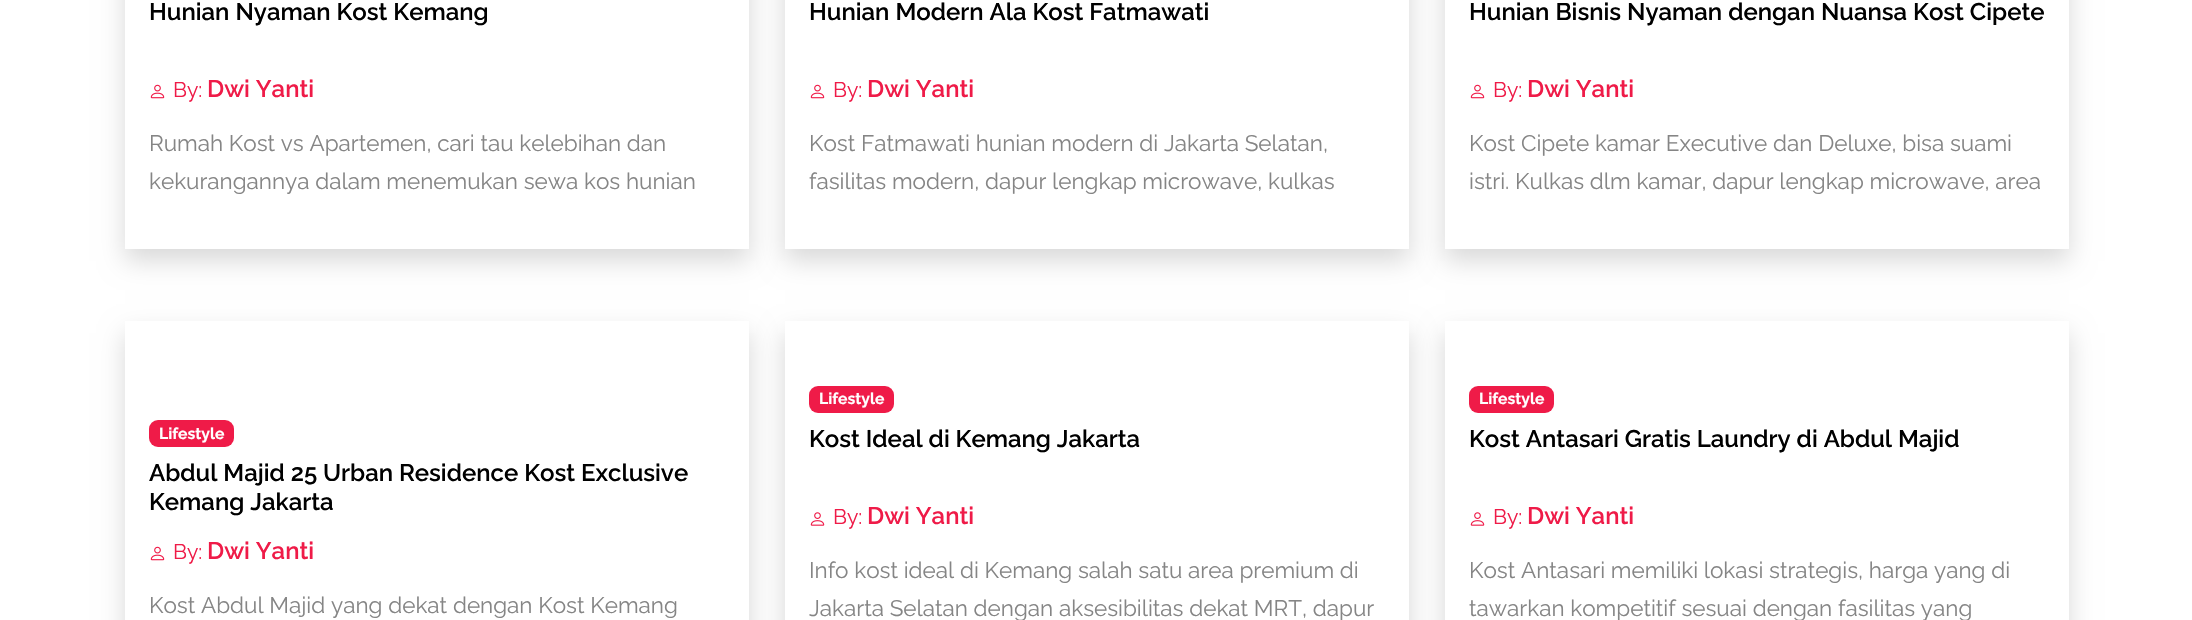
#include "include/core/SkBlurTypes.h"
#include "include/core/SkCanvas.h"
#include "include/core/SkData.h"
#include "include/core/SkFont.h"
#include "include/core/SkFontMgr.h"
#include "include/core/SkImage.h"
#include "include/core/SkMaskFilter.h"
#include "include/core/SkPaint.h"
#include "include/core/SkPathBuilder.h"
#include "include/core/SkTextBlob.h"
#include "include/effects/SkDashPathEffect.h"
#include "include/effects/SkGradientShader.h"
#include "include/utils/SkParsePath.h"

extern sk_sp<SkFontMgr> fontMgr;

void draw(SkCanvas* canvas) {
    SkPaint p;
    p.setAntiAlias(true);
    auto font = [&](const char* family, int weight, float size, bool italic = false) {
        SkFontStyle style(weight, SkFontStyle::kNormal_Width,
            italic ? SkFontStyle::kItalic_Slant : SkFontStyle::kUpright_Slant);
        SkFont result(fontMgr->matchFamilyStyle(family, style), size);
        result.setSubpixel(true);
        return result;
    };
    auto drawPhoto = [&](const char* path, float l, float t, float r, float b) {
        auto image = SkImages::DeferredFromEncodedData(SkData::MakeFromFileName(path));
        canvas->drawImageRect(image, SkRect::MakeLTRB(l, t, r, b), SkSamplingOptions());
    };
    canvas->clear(0xFFFFFFFF);
    canvas->save();
    canvas->clipPath(SkPathBuilder(SkPathFillType::kEvenOdd).moveTo(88, 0).lineTo(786, 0).lineTo(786, 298).lineTo(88, 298).close().moveTo(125, -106).lineTo(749, -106).lineTo(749, 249).lineTo(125, 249).close().detach(), true);
    p.setColor(0x26000000);
    p.setMaskFilter(SkMaskFilter::MakeBlur(kNormal_SkBlurStyle, 12));
    canvas->drawRect(SkRect::MakeLTRB(125, -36, 749, 261), p);
    p.setMaskFilter(nullptr);
    canvas->restore();
    p.setColor(0xFFFFFFFF);
    canvas->drawRoundRect(SkRect::MakeLTRB(125, -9, 749, 249), 9, 9, p);
    auto font1 = font("Raleway", 600, 24);
    p.setColor(0xFF000000);
    canvas->drawString("Hunian Nyaman Kost Kemang", 149, 20, font1, p);
    drawPhoto("media/1.png", 150, 84, 165, 99);
    auto font2 = font("Raleway", 400, 21);
    p.setColor(0xFFEF1B48);
    canvas->drawString("By:", 173, 97, font2, p);
    canvas->drawString("Dwi Yanti", 207, 97, font1, p);
    auto font3 = font("Raleway", 400, 22.5f);
    p.setColor(0xFF858585);
    canvas->drawString("Rumah Kost vs Apartemen, cari tau kelebihan dan", 149, 151, font3, p);
    canvas->drawString("kekurangannya dalam menemukan sewa kos hunian", 149, 189, font3, p);
    canvas->save();
    canvas->clipPath(SkPathBuilder(SkPathFillType::kEvenOdd).moveTo(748, 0).lineTo(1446, 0).lineTo(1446, 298).lineTo(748, 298).close().moveTo(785, -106).lineTo(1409, -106).lineTo(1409, 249).lineTo(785, 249).close().detach(), true);
    p.setColor(0x26000000);
    p.setMaskFilter(SkMaskFilter::MakeBlur(kNormal_SkBlurStyle, 12));
    canvas->drawRect(SkRect::MakeLTRB(785, -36, 1409, 261), p);
    p.setMaskFilter(nullptr);
    canvas->restore();
    p.setColor(0xFFFFFFFF);
    canvas->drawRoundRect(SkRect::MakeLTRB(785, -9, 1409, 249), 9, 9, p);
    p.setColor(0xFF000000);
    canvas->drawString("Hunian Modern Ala Kost Fatmawati", 809, 20, font1, p);
    drawPhoto("media/1.png", 810, 84, 825, 99);
    p.setColor(0xFFEF1B48);
    canvas->drawString("By:", 833, 97, font2, p);
    canvas->drawString("Dwi Yanti", 867, 97, font1, p);
    p.setColor(0xFF858585);
    canvas->drawString("Kost Fatmawati hunian modern di Jakarta Selatan,", 809, 151, font3, p);
    canvas->drawString("fasilitas modern, dapur lengkap microwave, kulkas", 809, 189, font3, p);
    canvas->save();
    canvas->clipPath(SkPathBuilder(SkPathFillType::kEvenOdd).moveTo(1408, 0).lineTo(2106, 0).lineTo(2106, 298).lineTo(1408, 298).close().moveTo(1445, -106).lineTo(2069, -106).lineTo(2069, 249).lineTo(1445, 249).close().detach(), true);
    p.setColor(0x26000000);
    p.setMaskFilter(SkMaskFilter::MakeBlur(kNormal_SkBlurStyle, 12));
    canvas->drawRect(SkRect::MakeLTRB(1445, -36, 2069, 261), p);
    p.setMaskFilter(nullptr);
    canvas->restore();
    p.setColor(0xFFFFFFFF);
    canvas->drawRoundRect(SkRect::MakeLTRB(1445, -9, 2069, 249), 9, 9, p);
    p.setColor(0xFF000000);
    canvas->drawString("Hunian Bisnis Nyaman dengan Nuansa Kost Cipete", 1469, 20, font1, p);
    drawPhoto("media/1.png", 1470, 84, 1485, 99);
    p.setColor(0xFFEF1B48);
    canvas->drawString("By:", 1493, 97, font2, p);
    canvas->drawString("Dwi Yanti", 1527, 97, font1, p);
    p.setColor(0xFF858585);
    canvas->drawString("Kost Cipete kamar Executive dan Deluxe, bisa suami", 1469, 151, font3, p);
    canvas->drawString("istri. Kulkas dlm kamar, dapur lengkap microwave, area", 1469, 189, font3, p);
    canvas->save();
    canvas->clipPath(SkPathBuilder(SkPathFillType::kEvenOdd).moveTo(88, 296).lineTo(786, 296).lineTo(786, 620).lineTo(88, 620).close().moveTo(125, 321).lineTo(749, 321).lineTo(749, 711).lineTo(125, 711).close().detach(), true);
    p.setColor(0x26000000);
    p.setMaskFilter(SkMaskFilter::MakeBlur(kNormal_SkBlurStyle, 12));
    canvas->drawRect(SkRect::MakeLTRB(125, 333, 749, 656), p);
    p.setMaskFilter(nullptr);
    canvas->restore();
    p.setColor(0xFFFFFFFF);
    canvas->drawRoundRect(SkRect::MakeLTRB(125, 321, 749, 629), 9, 9, p);
    p.setColor(0xFFEF1B48);
    canvas->drawRoundRect(SkRect::MakeLTRB(149, 420, 234, 447), 9, 9, p);
    auto font4 = font("Raleway", 700, 15.75f);
    p.setColor(0xFFFFFFFF);
    canvas->drawString("Lifestyle", 159, 439, font4, p);
    p.setColor(0xFF000000);
    canvas->drawString("Abdul Majid 25 Urban Residence Kost Exclusive", 149, 481, font1, p);
    canvas->drawString("Kemang Jakarta", 149, 510, font1, p);
    drawPhoto("media/1.png", 150, 546, 165, 561);
    p.setColor(0xFFEF1B48);
    canvas->drawString("By:", 173, 559, font2, p);
    canvas->drawString("Dwi Yanti", 207, 559, font1, p);
    p.setColor(0xFF858585);
    canvas->drawString("Kost Abdul Majid yang dekat dengan Kost Kemang", 149, 613, font3, p);
    canvas->save();
    canvas->clipPath(SkPathBuilder(SkPathFillType::kEvenOdd).moveTo(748, 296).lineTo(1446, 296).lineTo(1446, 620).lineTo(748, 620).close().moveTo(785, 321).lineTo(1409, 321).lineTo(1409, 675).lineTo(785, 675).close().detach(), true);
    p.setColor(0x26000000);
    p.setMaskFilter(SkMaskFilter::MakeBlur(kNormal_SkBlurStyle, 12));
    canvas->drawRect(SkRect::MakeLTRB(785, 333, 1409, 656), p);
    p.setMaskFilter(nullptr);
    canvas->restore();
    p.setColor(0xFFFFFFFF);
    canvas->drawRoundRect(SkRect::MakeLTRB(785, 321, 1409, 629), 9, 9, p);
    p.setColor(0xFFEF1B48);
    canvas->drawRoundRect(SkRect::MakeLTRB(809, 386, 894, 413), 9, 9, p);
    p.setColor(0xFFFFFFFF);
    canvas->drawString("Lifestyle", 819, 404, font4, p);
    p.setColor(0xFF000000);
    canvas->drawString("Kost Ideal di Kemang Jakarta", 809, 447, font1, p);
    drawPhoto("media/2.png", 810, 512, 825, 526);
    p.setColor(0xFFEF1B48);
    canvas->drawString("By:", 833, 524, font2, p);
    canvas->drawString("Dwi Yanti", 867, 524, font1, p);
    p.setColor(0xFF858585);
    canvas->drawString("Info kost ideal di Kemang salah satu area premium di", 809, 578, font3, p);
    canvas->drawString("Jakarta Selatan dengan aksesibilitas dekat MRT, dapur", 809, 616, font3, p);
    canvas->save();
    canvas->clipPath(SkPathBuilder(SkPathFillType::kEvenOdd).moveTo(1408, 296).lineTo(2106, 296).lineTo(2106, 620).lineTo(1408, 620).close().moveTo(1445, 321).lineTo(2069, 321).lineTo(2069, 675).lineTo(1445, 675).close().detach(), true);
    p.setColor(0x26000000);
    p.setMaskFilter(SkMaskFilter::MakeBlur(kNormal_SkBlurStyle, 12));
    canvas->drawRect(SkRect::MakeLTRB(1445, 333, 2069, 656), p);
    p.setMaskFilter(nullptr);
    canvas->restore();
    p.setColor(0xFFFFFFFF);
    canvas->drawRoundRect(SkRect::MakeLTRB(1445, 321, 2069, 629), 9, 9, p);
    p.setColor(0xFFEF1B48);
    canvas->drawRoundRect(SkRect::MakeLTRB(1469, 386, 1554, 413), 9, 9, p);
    p.setColor(0xFFFFFFFF);
    canvas->drawString("Lifestyle", 1479, 404, font4, p);
    p.setColor(0xFF000000);
    canvas->drawString("Kost Antasari Gratis Laundry di Abdul Majid", 1469, 447, font1, p);
    drawPhoto("media/2.png", 1470, 512, 1485, 526);
    p.setColor(0xFFEF1B48);
    canvas->drawString("By:", 1493, 524, font2, p);
    canvas->drawString("Dwi Yanti", 1527, 524, font1, p);
    p.setColor(0xFF858585);
    canvas->drawString("Kost Antasari memiliki lokasi strategis, harga yang di", 1469, 578, font3, p);
    canvas->drawString("tawarkan kompetitif sesuai dengan fasilitas yang", 1469, 616, font3, p);
}
